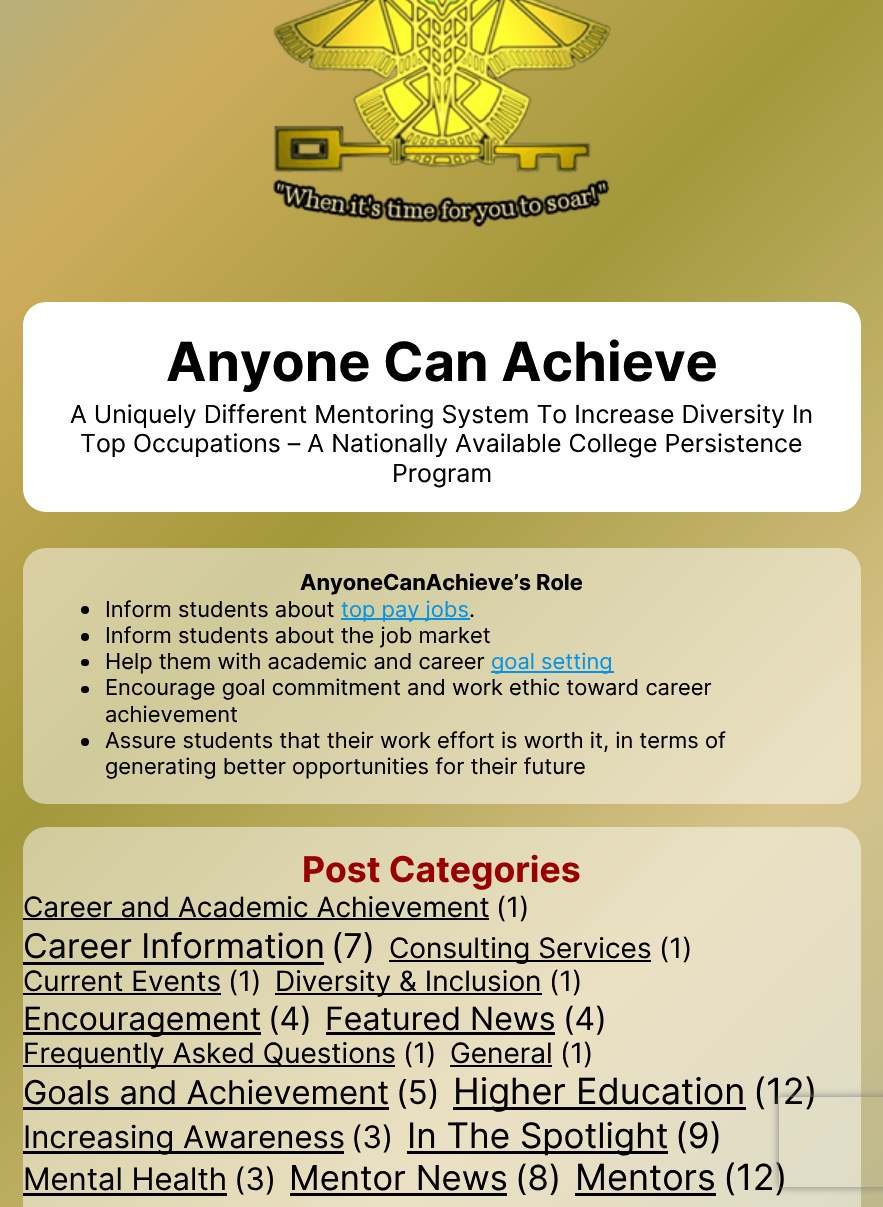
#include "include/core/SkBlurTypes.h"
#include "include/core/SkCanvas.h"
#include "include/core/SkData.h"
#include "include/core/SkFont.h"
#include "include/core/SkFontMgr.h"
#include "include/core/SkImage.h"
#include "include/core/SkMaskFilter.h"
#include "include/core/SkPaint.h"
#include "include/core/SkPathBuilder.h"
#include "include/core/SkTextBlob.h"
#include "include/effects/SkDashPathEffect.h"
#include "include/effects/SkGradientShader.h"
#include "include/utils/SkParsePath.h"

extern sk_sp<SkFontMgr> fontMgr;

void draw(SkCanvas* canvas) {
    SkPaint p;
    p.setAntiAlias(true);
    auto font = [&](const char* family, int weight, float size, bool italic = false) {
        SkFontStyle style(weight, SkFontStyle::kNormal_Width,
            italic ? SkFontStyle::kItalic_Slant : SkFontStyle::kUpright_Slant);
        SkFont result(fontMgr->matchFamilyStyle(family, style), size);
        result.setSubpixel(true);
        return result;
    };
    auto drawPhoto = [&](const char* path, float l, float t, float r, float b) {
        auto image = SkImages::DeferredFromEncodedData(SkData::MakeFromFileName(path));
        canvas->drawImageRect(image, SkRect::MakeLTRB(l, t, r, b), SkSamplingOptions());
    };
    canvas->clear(0xFFFFFFFF);
    {
        const SkColor colors[] = {0xFFA8AF90, 0xFFCDAD5C, 0xFFA3983B, 0xFFD6C38A, 0xFFA8AF90, 0xFFA3983B};
        const float stops[] = {0, 0.13f, 0.29f, 0.5f, 0.76f, 1};
        const SkPoint ends[] = {{-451, 259}, {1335, 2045}};
        p.setShader(SkGradientShader::MakeLinear(ends, colors, stops, 6, SkTileMode::kClamp));
        p.setAlpha(255);
    }
    canvas->drawRect(SkRect::MakeLTRB(0, 0, 883, 1207), p);
    drawPhoto("media/1.png", 273, 0, 611, 227);
    p.setShader(nullptr);
    p.setColor(0xFFFFFFFF);
    canvas->drawRoundRect(SkRect::MakeLTRB(23, 302, 861, 512), 23, 23, p);
    auto font1 = font("Inter", 700, 54);
    p.setColor(0xFF000000);
    canvas->drawString("Anyone Can Achieve", 166, 381, font1, p);
    auto font2 = font("Inter", 400, 24.9f);
    {
        const struct { const char* s; float x, y; } items[] = {
            {"A Uniquely Different Mentoring System To Increase Diversity In", 70, 423},
            {"Top Occupations – A Nationally Available College Persistence", 80, 452},
            {"Program", 392, 482},
        };
        for (auto [s, x, y] : items) {
            canvas->drawString(s, x, y, font2, p);
        }
    }
    p.setColor(0x7DFFFFFF);
    canvas->drawRoundRect(SkRect::MakeLTRB(23, 548, 861, 804), 23, 23, p);
    auto font3 = font("Inter", 700, 21.9f);
    p.setColor(0xFF000000);
    canvas->drawString("AnyoneCanAchieve’s Role", 300, 590, font3, p);
    canvas->drawCircle(85, 610, 4, p);
    auto font4 = font("Inter", 400, 21.9f);
    canvas->drawString("Inform students about", 105, 617, font4, p);
    p.setColor(0xFF0693E3);
    canvas->drawRect(SkRect::MakeLTRB(341, 618, 470, 620), p);
    canvas->drawString("top pay jobs", 341, 617, font4, p);
    p.setColor(0xFF000000);
    canvas->drawString(".", 469, 617, font4, p);
    canvas->drawCircle(85, 637, 4, p);
    canvas->drawString("Inform students about the job market", 105, 643, font4, p);
    canvas->drawRoundRect(SkRect::MakeLTRB(81, 659, 89, 666), 3.5f, 3.5f, p);
    canvas->drawString("Help them with academic and career", 105, 669, font4, p);
    p.setColor(0xFF0693E3);
    canvas->drawRect(SkRect::MakeLTRB(491, 671, 614, 673), p);
    canvas->drawString("goal setting", 491, 669, font4, p);
    p.setColor(0xFF000000);
    canvas->drawRoundRect(SkRect::MakeLTRB(81, 686, 89, 693), 3.5f, 3.5f, p);
    canvas->drawString("Encourage goal commitment and work ethic toward career", 105, 695, font4, p);
    canvas->drawString("achievement", 105, 722, font4, p);
    canvas->drawCircle(85, 742, 4, p);
    canvas->drawString("Assure students that their work effort is worth it, in terms of", 105, 748, font4, p);
    canvas->drawString("generating better opportunities for their future", 105, 774, font4, p);
    p.setColor(0x7DFFFFFF);
    canvas->drawRoundRect(SkRect::MakeLTRB(23, 827, 861, 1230), 23, 23, p);
    auto font5 = font("Inter", 700, 35.5f);
    p.setColor(0xFF990000);
    canvas->drawString("Post Categories", 302, 882, font5, p);
    auto font6 = font("Inter", 400, 28);
    p.setColor(0xFF000000);
    canvas->drawString("Career and Academic Achievement", 23, 917, font6, p);
    canvas->drawRect(SkRect::MakeLTRB(23, 918, 489, 920), p);
    canvas->drawString("(1)", 496, 917, font6, p);
    auto font7 = font("Inter", 400, 34);
    canvas->drawString("Career Information", 23, 958, font7, p);
    canvas->drawRect(SkRect::MakeLTRB(23, 962, 324, 965), p);
    canvas->drawString("(7)", 331, 958, font7, p);
    canvas->drawRect(SkRect::MakeLTRB(389, 960, 651, 962), p);
    {
        const struct { const char* s; float x, y; } items[] = {
            {"Consulting Services", 389, 958},
            {"(1)", 659, 958},
            {"Current Events", 23, 991},
        };
        for (auto [s, x, y] : items) {
            canvas->drawString(s, x, y, font6, p);
        }
    }
    canvas->drawRect(SkRect::MakeLTRB(23, 993, 221, 995), p);
    canvas->drawString("(1)", 228, 991, font6, p);
    canvas->drawRect(SkRect::MakeLTRB(275, 993, 542, 995), p);
    canvas->drawString("Diversity & Inclusion", 275, 991, font6, p);
    canvas->drawString("(1)", 549, 991, font6, p);
    canvas->drawRect(SkRect::MakeLTRB(23, 1032, 261, 1035), p);
    auto font8 = font("Inter", 400, 32);
    {
        const struct { const char* s; float x, y; } items[] = {
            {"Encouragement", 23, 1030},
            {"(4)", 268, 1030},
            {"Featured News", 325, 1030},
        };
        for (auto [s, x, y] : items) {
            canvas->drawString(s, x, y, font8, p);
        }
    }
    canvas->drawRect(SkRect::MakeLTRB(326, 1032, 555, 1035), p);
    canvas->drawString("(4)", 563, 1030, font8, p);
    canvas->drawRect(SkRect::MakeLTRB(23, 1065, 395, 1067), p);
    {
        const struct { const char* s; float x, y; } items[] = {
            {"Frequently Asked Questions", 23, 1063},
            {"(1)", 403, 1063},
            {"General", 450, 1063},
        };
        for (auto [s, x, y] : items) {
            canvas->drawString(s, x, y, font6, p);
        }
    }
    canvas->drawRect(SkRect::MakeLTRB(450, 1065, 552, 1067), p);
    canvas->drawString("(1)", 560, 1063, font6, p);
    auto font9 = font("Inter", 400, 32.75f);
    canvas->drawString("Goals and Achievement", 23, 1104, font9, p);
    canvas->drawRect(SkRect::MakeLTRB(23, 1107, 389, 1110), p);
    canvas->drawString("(5)", 396, 1104, font9, p);
    canvas->drawRect(SkRect::MakeLTRB(453, 1107, 746, 1110), p);
    auto font10 = font("Inter", 400, 36);
    canvas->drawString("Higher Education", 453, 1104, font10, p);
    canvas->drawString("(12)", 753, 1104, font10, p);
    canvas->drawRect(SkRect::MakeLTRB(23, 1151, 344, 1154), p);
    auto font11 = font("Inter", 400, 31);
    canvas->drawString("Increasing Awareness", 23, 1148, font11, p);
    canvas->drawString("(3)", 351, 1148, font11, p);
    canvas->drawRect(SkRect::MakeLTRB(407, 1151, 668, 1154), p);
    auto font12 = font("Inter", 400, 35);
    canvas->drawString("In The Spotlight", 407, 1148, font12, p);
    canvas->drawString("(9)", 675, 1148, font12, p);
    canvas->drawString("Mental Health", 23, 1190, font11, p);
    canvas->drawRect(SkRect::MakeLTRB(23, 1193, 227, 1196), p);
    canvas->drawString("(3)", 234, 1190, font11, p);
    auto font13 = font("Inter", 400, 34.5f);
    canvas->drawString("Mentor News", 289, 1190, font13, p);
    canvas->drawRect(SkRect::MakeLTRB(290, 1193, 507, 1196), p);
    canvas->drawString("(8)", 515, 1190, font13, p);
    canvas->drawString("Mentors", 575, 1190, font10, p);
    canvas->drawRect(SkRect::MakeLTRB(575, 1193, 716, 1196), p);
    canvas->drawString("(12)", 723, 1190, font10, p);
    canvas->save();
    canvas->clipPath(SkPathBuilder(SkPathFillType::kEvenOdd).moveTo(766, 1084).lineTo(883, 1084).lineTo(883, 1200).lineTo(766, 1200).close().moveTo(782, 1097).lineTo(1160, 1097).cubicTo(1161.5f, 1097, 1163, 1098.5f, 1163, 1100).lineTo(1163, 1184).cubicTo(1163, 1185.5f, 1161.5f, 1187, 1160, 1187).lineTo(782, 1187).cubicTo(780.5f, 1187, 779, 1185.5f, 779, 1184).lineTo(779, 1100).cubicTo(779, 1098.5f, 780.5f, 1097, 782, 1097).close().detach(), true);
    p.setColor(0xFF808080);
    p.setMaskFilter(SkMaskFilter::MakeBlur(kNormal_SkBlurStyle, 4));
    canvas->drawRoundRect(SkRect::MakeLTRB(779, 1097, 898, 1187), 3, 3, p);
    p.setMaskFilter(nullptr);
    canvas->restore();
}
